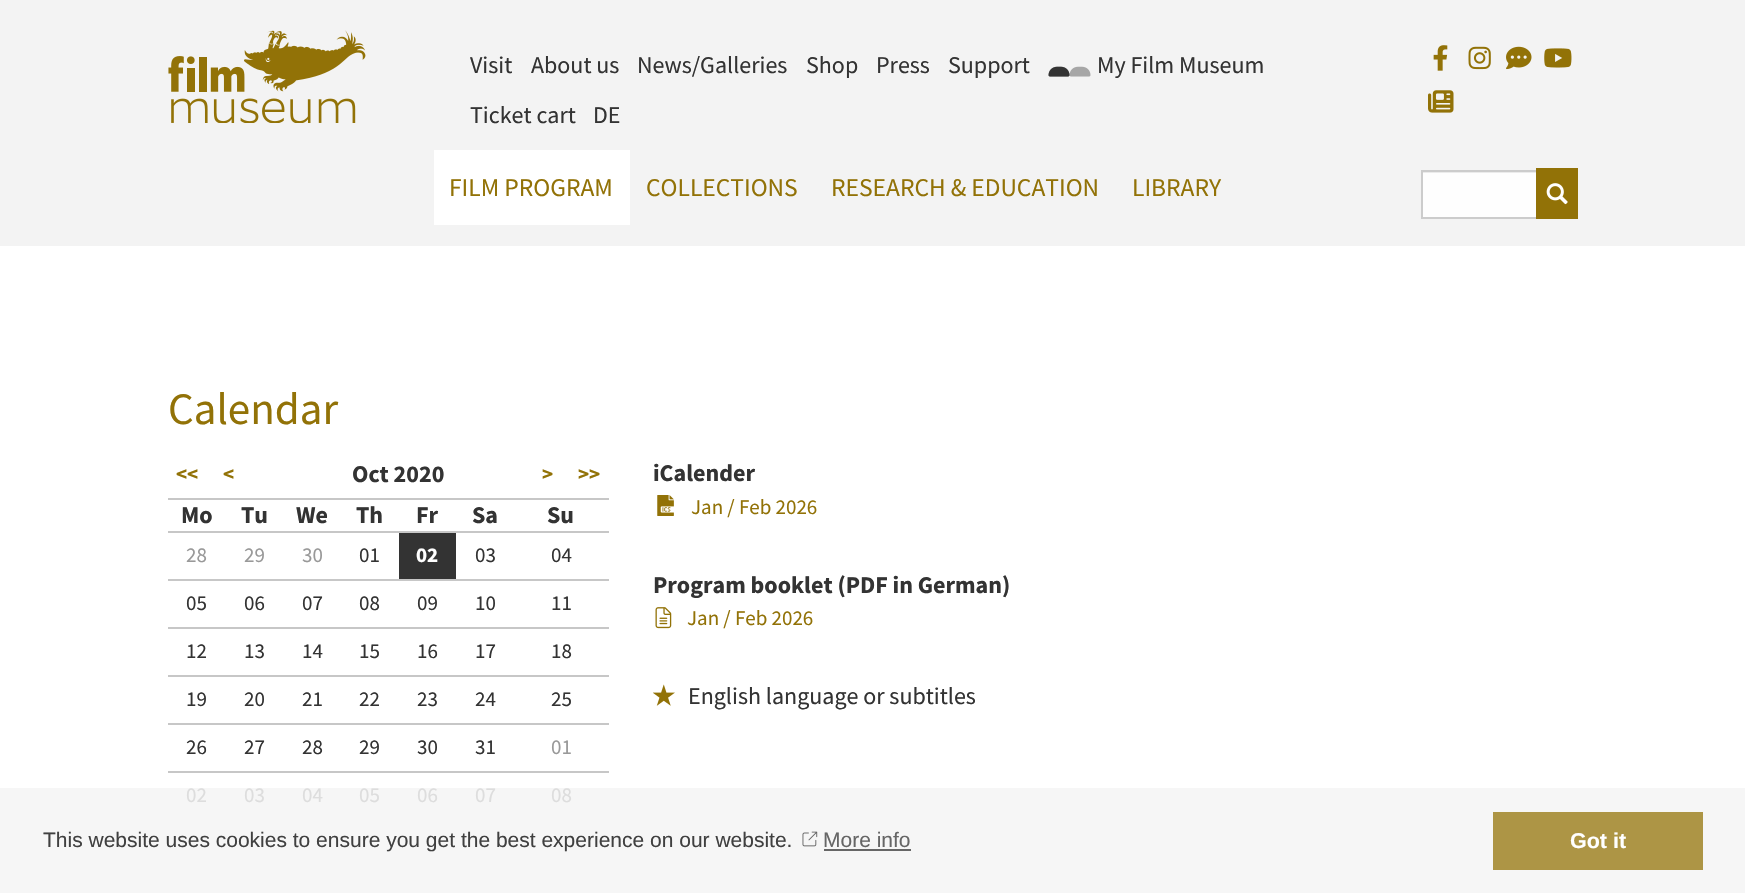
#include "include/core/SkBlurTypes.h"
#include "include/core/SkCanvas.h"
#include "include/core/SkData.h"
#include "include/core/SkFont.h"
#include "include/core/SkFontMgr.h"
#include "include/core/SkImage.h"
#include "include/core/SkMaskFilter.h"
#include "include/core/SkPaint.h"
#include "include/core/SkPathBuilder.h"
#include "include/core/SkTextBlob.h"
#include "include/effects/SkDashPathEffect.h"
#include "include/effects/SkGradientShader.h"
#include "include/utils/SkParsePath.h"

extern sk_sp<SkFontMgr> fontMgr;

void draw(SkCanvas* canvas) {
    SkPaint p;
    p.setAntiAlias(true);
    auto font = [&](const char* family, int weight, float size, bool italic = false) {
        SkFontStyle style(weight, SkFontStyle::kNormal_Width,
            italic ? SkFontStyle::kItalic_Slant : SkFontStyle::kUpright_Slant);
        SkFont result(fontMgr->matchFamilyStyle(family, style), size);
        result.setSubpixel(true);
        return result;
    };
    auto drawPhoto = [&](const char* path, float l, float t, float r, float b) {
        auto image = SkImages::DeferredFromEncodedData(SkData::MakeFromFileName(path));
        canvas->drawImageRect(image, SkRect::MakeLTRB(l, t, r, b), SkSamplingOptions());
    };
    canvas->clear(0xFFFFFFFF);
    p.setColor(0xFFF6F6F6);
    canvas->drawRect(SkRect::MakeLTRB(0, 788, 1745, 893), p);
    p.setColor(0xFFF3F3F3);
    canvas->drawRect(SkRect::MakeLTRB(0, 0, 1745, 246), p);
    drawPhoto("media/1.png", 168, 30, 366, 123);
    auto font1 = font("Source Sans Pro", 400, 24);
    p.setColor(0xFF333333);
    {
        const struct { const char* s; float x, y; } items[] = {
            {"Visit", 470, 73},
            {"About us", 531, 73},
            {"News/Galleries", 637, 73},
            {"Shop", 806, 73},
            {"Press", 876, 73},
            {"Support", 948, 73},
        };
        for (auto [s, x, y] : items) {
            canvas->drawString(s, x, y, font1, p);
        }
    }
    drawPhoto("media/2.png", 1048, 66, 1070, 77);
    drawPhoto("media/3.png", 1048, 66, 1091, 77);
    {
        const struct { const char* s; float x, y; } items[] = {
            {"My Film Museum", 1097, 73},
            {"Ticket cart", 470, 123},
            {"DE", 593, 123},
        };
        for (auto [s, x, y] : items) {
            canvas->drawString(s, x, y, font1, p);
        }
    }
    drawPhoto("media/4.png", 1433, 45, 1448, 71);
    drawPhoto("media/5.png", 1468, 46, 1491, 70);
    drawPhoto("media/6.png", 1506, 46, 1532, 70);
    drawPhoto("media/7.png", 1544, 48, 1572, 68);
    drawPhoto("media/8.png", 1428, 90, 1454, 113);
    p.setColor(0xFFFFFFFF);
    canvas->drawRect(SkRect::MakeLTRB(434, 150, 630, 225), p);
    auto font2 = font("Source Sans Pro", 400, 25.5f);
    p.setColor(0xFF927207);
    {
        const struct { const char* s; float x, y; } items[] = {
            {"FILM PROGRAM", 449, 196},
            {"COLLECTIONS", 646, 196},
            {"RESEARCH & EDUCATION", 831, 196},
            {"LIBRARY", 1132, 196},
        };
        for (auto [s, x, y] : items) {
            canvas->drawString(s, x, y, font2, p);
        }
    }
    p.setColor(0xFFFEFEFE);
    canvas->drawRect(SkRect::MakeLTRB(1423, 173, 1536, 217), p);
    p.setColor(0xFFEBEBEB);
    canvas->drawRect(SkRect::MakeLTRB(1422, 172, 1536, 173), p);
    p.setStyle(SkPaint::kStroke_Style);
    p.setStrokeWidth(2);
    p.setColor(0xFFCCCCCC);
    canvas->drawRect(SkRect::MakeLTRB(1422, 171, 1537, 218), p);
    p.setStyle(SkPaint::kFill_Style);
    p.setColor(0xFF927207);
    canvas->drawRect(SkRect::MakeLTRB(1536, 168, 1578, 219), p);
    drawPhoto("media/9.png", 1546, 183, 1568, 205);
    auto font3 = font("Source Sans Pro", 400, 45);
    canvas->drawString("Calendar", 168, 424, font3, p);
    p.setColor(0xFFC7C7C7);
    canvas->drawRect(SkRect::MakeLTRB(168, 498, 609, 500), p);
    auto font4 = font("Source Sans Pro", 700, 21);
    p.setColor(0xFF927207);
    canvas->drawString("<<", 176, 481, font4, p);
    canvas->drawString("<", 223, 481, font4, p);
    auto font5 = font("Source Sans Pro", 700, 24);
    p.setColor(0xFF333333);
    canvas->drawString("Oct 2020", 352, 482, font5, p);
    p.setColor(0xFF927207);
    canvas->drawString(">", 542, 481, font4, p);
    canvas->drawString(">>", 578, 481, font4, p);
    p.setColor(0xFFC7C7C7);
    canvas->drawRect(SkRect::MakeLTRB(168, 531, 609, 533), p);
    p.setColor(0xFF333333);
    {
        const struct { const char* s; float x, y; } items[] = {
            {"Mo", 181, 523},
            {"Tu", 241, 523},
            {"We", 296, 523},
            {"Th", 356, 523},
            {"Fr", 416, 523},
            {"Sa", 472, 523},
            {"Su", 547, 523},
        };
        for (auto [s, x, y] : items) {
            canvas->drawString(s, x, y, font5, p);
        }
    }
    p.setColor(0xFFC7C7C7);
    canvas->drawRect(SkRect::MakeLTRB(168, 579, 609, 581), p);
    auto font6 = font("Source Sans Pro", 400, 21);
    p.setColor(0xFF999999);
    {
        const struct { const char* s; float x, y; } items[] = {
            {"28", 186, 562},
            {"29", 244, 562},
            {"30", 302, 562},
        };
        for (auto [s, x, y] : items) {
            canvas->drawString(s, x, y, font6, p);
        }
    }
    p.setColor(0xFF333333);
    canvas->drawString("01", 359, 562, font6, p);
    canvas->drawRect(SkRect::MakeLTRB(399, 533, 456, 579), p);
    p.setColor(0xFFFFFFFF);
    canvas->drawString("02", 416, 562, font4, p);
    p.setColor(0xFF333333);
    canvas->drawString("03", 475, 562, font6, p);
    canvas->drawString("04", 551, 562, font6, p);
    p.setColor(0xFFC7C7C7);
    canvas->drawRect(SkRect::MakeLTRB(168, 627, 609, 629), p);
    p.setColor(0xFF333333);
    {
        const struct { const char* s; float x, y; } items[] = {
            {"05", 186, 610},
            {"06", 244, 610},
            {"07", 302, 610},
            {"08", 359, 610},
            {"09", 417, 610},
            {"10", 475, 610},
            {"11", 551, 610},
        };
        for (auto [s, x, y] : items) {
            canvas->drawString(s, x, y, font6, p);
        }
    }
    p.setColor(0xFFC7C7C7);
    canvas->drawRect(SkRect::MakeLTRB(168, 675, 609, 677), p);
    p.setColor(0xFF333333);
    {
        const struct { const char* s; float x, y; } items[] = {
            {"12", 186, 658},
            {"13", 244, 658},
            {"14", 302, 658},
            {"15", 359, 658},
            {"16", 417, 658},
            {"17", 475, 658},
            {"18", 551, 658},
        };
        for (auto [s, x, y] : items) {
            canvas->drawString(s, x, y, font6, p);
        }
    }
    p.setColor(0xFFC7C7C7);
    canvas->drawRect(SkRect::MakeLTRB(168, 723, 609, 725), p);
    p.setColor(0xFF333333);
    {
        const struct { const char* s; float x, y; } items[] = {
            {"19", 186, 706},
            {"20", 244, 706},
            {"21", 302, 706},
            {"22", 359, 706},
            {"23", 417, 706},
            {"24", 475, 706},
            {"25", 551, 706},
        };
        for (auto [s, x, y] : items) {
            canvas->drawString(s, x, y, font6, p);
        }
    }
    p.setColor(0xFFC7C7C7);
    canvas->drawRect(SkRect::MakeLTRB(168, 771, 609, 773), p);
    p.setColor(0xFF333333);
    {
        const struct { const char* s; float x, y; } items[] = {
            {"26", 186, 754},
            {"27", 244, 754},
            {"28", 302, 754},
            {"29", 359, 754},
            {"30", 417, 754},
            {"31", 475, 754},
        };
        for (auto [s, x, y] : items) {
            canvas->drawString(s, x, y, font6, p);
        }
    }
    p.setColor(0xFF999999);
    canvas->drawString("01", 551, 754, font6, p);
    p.setColor(0xFFDDDDDD);
    {
        const struct { const char* s; float x, y; } items[] = {
            {"02", 186, 802},
            {"03", 244, 802},
            {"04", 302, 802},
            {"05", 359, 802},
            {"06", 417, 802},
            {"07", 475, 802},
            {"08", 551, 802},
        };
        for (auto [s, x, y] : items) {
            canvas->drawString(s, x, y, font6, p);
        }
    }
    p.setColor(0xFF333333);
    canvas->drawString("iCalender", 653, 481, font5, p);
    drawPhoto("media/10.png", 657, 495, 674, 516);
    p.setColor(0xFF927207);
    canvas->drawString("Jan / Feb 2026", 691, 514, font6, p);
    p.setColor(0xFF333333);
    canvas->drawString("Program booklet (PDF in German)", 653, 593, font5, p);
    drawPhoto("media/11.png", 655, 607, 672, 629);
    p.setColor(0xFF927207);
    canvas->drawString("Jan / Feb 2026", 687, 625, font6, p);
    drawPhoto("media/12.png", 653, 684, 675, 706);
    p.setColor(0xFF333333);
    canvas->drawString("English language or subtitles", 688, 704, font1, p);
    auto font7 = font("Liberation Sans", 400, 21);
    p.setColor(0xFF404040);
    canvas->drawString("This website uses cookies to ensure you get the best experience on our website.", 43, 847, font7, p);
    drawPhoto("media/13.png", 802, 831, 818, 847);
    p.setColor(0xFF666666);
    canvas->drawString("More info", 823, 847, font7, p);
    canvas->drawRect(SkRect::MakeLTRB(824, 849, 911, 851), p);
    p.setColor(0xFFAD9545);
    canvas->drawRect(SkRect::MakeLTRB(1493, 812, 1703, 870), p);
    auto font8 = font("Liberation Sans", 700, 21.5f);
    p.setColor(0xFFFFFFFF);
    canvas->drawString("Got it", 1570, 848, font8, p);
}
